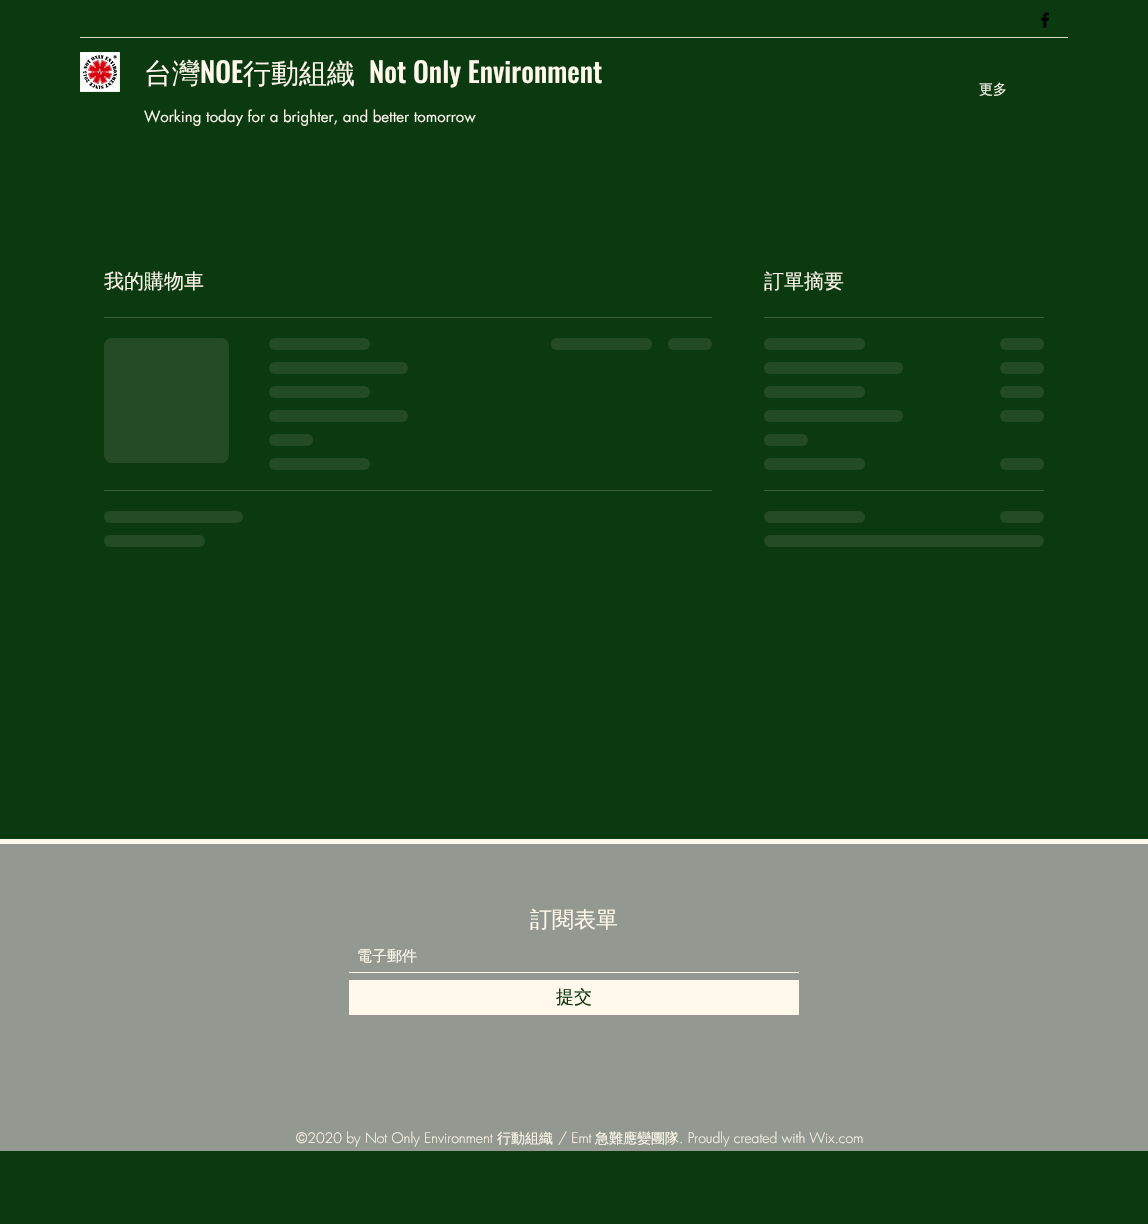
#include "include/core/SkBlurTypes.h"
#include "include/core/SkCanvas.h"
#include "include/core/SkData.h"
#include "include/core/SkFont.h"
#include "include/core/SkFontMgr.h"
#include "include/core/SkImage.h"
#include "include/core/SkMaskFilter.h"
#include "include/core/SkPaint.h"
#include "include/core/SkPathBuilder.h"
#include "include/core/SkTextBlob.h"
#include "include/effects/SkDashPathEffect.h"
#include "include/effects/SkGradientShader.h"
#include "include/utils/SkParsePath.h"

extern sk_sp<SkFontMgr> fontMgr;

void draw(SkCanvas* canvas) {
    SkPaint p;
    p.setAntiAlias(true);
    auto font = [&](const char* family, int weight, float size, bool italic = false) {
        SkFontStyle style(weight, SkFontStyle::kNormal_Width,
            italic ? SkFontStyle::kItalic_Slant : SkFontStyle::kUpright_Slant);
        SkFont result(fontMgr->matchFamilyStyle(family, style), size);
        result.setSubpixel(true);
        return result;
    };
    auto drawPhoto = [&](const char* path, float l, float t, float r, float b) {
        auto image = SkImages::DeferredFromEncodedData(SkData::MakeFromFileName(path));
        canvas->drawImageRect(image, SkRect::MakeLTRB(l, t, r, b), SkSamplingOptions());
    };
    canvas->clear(0xFF0B3910);
    drawPhoto("media/1.png", 1041, 12, 1049, 28);
    p.setColor(0xFFDADBCA);
    canvas->drawRect(SkRect::MakeLTRB(80, 37, 1068, 38), p);
    drawPhoto("media/2.png", 80, 52, 120, 92);
    auto font1 = font("WenQuanYi Zen Hei", 500, 28);
    p.setColor(0xFFFFF8EB);
    canvas->drawString("台灣", 144, 83, font1, p);
    auto font2 = font("Oswald", 500, 28);
    canvas->drawString("NOE", 200, 83, font2, p);
    canvas->drawString("行動組織", 243, 83, font1, p);
    canvas->drawString("Not Only Environment", 369, 83, font2, p);
    auto font3 = font("futura", 400, 15);
    canvas->drawString("Working today for a brighter, and better tomorrow", 144, 122, font3, p);
    auto font4 = font("WenQuanYi Zen Hei", 500, 14);
    canvas->drawString("更多", 979, 94, font4, p);
    p.setColor(0xFF3C5F3C);
    canvas->drawRect(SkRect::MakeLTRB(104, 317, 712, 318), p);
    auto font5 = font("WenQuanYi Zen Hei", 500, 20);
    p.setColor(0xFFFFF8EB);
    canvas->drawString("我的購物車", 104, 288, font5, p);
    {
        const SkColor colors[] = {0xFF234C26, 0xFF3C5F3C, 0xFF234C26};
        const float stops[] = {0.25f, 0.37f, 0.63f};
        const SkPoint ends[] = {{104, 401}, {604, 401}};
        p.setShader(SkGradientShader::MakeLinear(ends, colors, stops, 3, SkTileMode::kClamp));
        p.setAlpha(255);
    }
    canvas->drawRoundRect(SkRect::MakeLTRB(104, 338, 229, 463), 8, 8, p);
    {
        const SkColor colors[] = {0xFF234C26, 0xFF3C5F3C, 0xFF234C26};
        const float stops[] = {0.25f, 0.37f, 0.63f};
        const SkPoint ends[] = {{269, 344}, {673, 344}};
        p.setShader(SkGradientShader::MakeLinear(ends, colors, stops, 3, SkTileMode::kClamp));
        p.setAlpha(255);
    }
    canvas->drawRoundRect(SkRect::MakeLTRB(269, 338, 370, 350), 6, 6, p);
    {
        const SkColor colors[] = {0xFF234C26, 0xFF3C5F3C, 0xFF234C26};
        const float stops[] = {0.25f, 0.37f, 0.63f};
        const SkPoint ends[] = {{269, 368}, {825, 368}};
        p.setShader(SkGradientShader::MakeLinear(ends, colors, stops, 3, SkTileMode::kClamp));
        p.setAlpha(255);
    }
    canvas->drawRoundRect(SkRect::MakeLTRB(269, 362, 408, 374), 6, 6, p);
    {
        const SkColor colors[] = {0xFF234C26, 0xFF3C5F3C, 0xFF234C26};
        const float stops[] = {0.25f, 0.37f, 0.63f};
        const SkPoint ends[] = {{269, 392}, {673, 392}};
        p.setShader(SkGradientShader::MakeLinear(ends, colors, stops, 3, SkTileMode::kClamp));
        p.setAlpha(255);
    }
    canvas->drawRoundRect(SkRect::MakeLTRB(269, 386, 370, 398), 6, 6, p);
    {
        const SkColor colors[] = {0xFF234C26, 0xFF3C5F3C, 0xFF234C26};
        const float stops[] = {0.25f, 0.37f, 0.63f};
        const SkPoint ends[] = {{269, 416}, {825, 416}};
        p.setShader(SkGradientShader::MakeLinear(ends, colors, stops, 3, SkTileMode::kClamp));
        p.setAlpha(255);
    }
    canvas->drawRoundRect(SkRect::MakeLTRB(269, 410, 408, 422), 6, 6, p);
    {
        const SkColor colors[] = {0xFF234C26, 0xFF3C5F3C, 0xFF234C26};
        const float stops[] = {0.25f, 0.37f, 0.63f};
        const SkPoint ends[] = {{269, 440}, {445, 440}};
        p.setShader(SkGradientShader::MakeLinear(ends, colors, stops, 3, SkTileMode::kClamp));
        p.setAlpha(255);
    }
    canvas->drawRoundRect(SkRect::MakeLTRB(269, 434, 313, 446), 6, 6, p);
    {
        const SkColor colors[] = {0xFF234C26, 0xFF3C5F3C, 0xFF234C26};
        const float stops[] = {0.25f, 0.37f, 0.63f};
        const SkPoint ends[] = {{269, 464}, {673, 464}};
        p.setShader(SkGradientShader::MakeLinear(ends, colors, stops, 3, SkTileMode::kClamp));
        p.setAlpha(255);
    }
    canvas->drawRoundRect(SkRect::MakeLTRB(269, 458, 370, 470), 6, 6, p);
    {
        const SkColor colors[] = {0xFF234C26, 0xFF3C5F3C, 0xFF234C26};
        const float stops[] = {0.25f, 0.37f, 0.63f};
        const SkPoint ends[] = {{551, 344}, {955, 344}};
        p.setShader(SkGradientShader::MakeLinear(ends, colors, stops, 3, SkTileMode::kClamp));
        p.setAlpha(255);
    }
    canvas->drawRoundRect(SkRect::MakeLTRB(551, 338, 652, 350), 6, 6, p);
    {
        const SkColor colors[] = {0xFF234C26, 0xFF3C5F3C, 0xFF234C26};
        const float stops[] = {0.25f, 0.37f, 0.63f};
        const SkPoint ends[] = {{668, 344}, {844, 344}};
        p.setShader(SkGradientShader::MakeLinear(ends, colors, stops, 3, SkTileMode::kClamp));
        p.setAlpha(255);
    }
    canvas->drawRoundRect(SkRect::MakeLTRB(668, 338, 712, 350), 6, 6, p);
    p.setShader(nullptr);
    p.setColor(0xFF3C5F3C);
    canvas->drawRect(SkRect::MakeLTRB(104, 490, 712, 491), p);
    {
        const SkColor colors[] = {0xFF234C26, 0xFF3C5F3C, 0xFF234C26};
        const float stops[] = {0.25f, 0.37f, 0.63f};
        const SkPoint ends[] = {{104, 517}, {660, 517}};
        p.setShader(SkGradientShader::MakeLinear(ends, colors, stops, 3, SkTileMode::kClamp));
        p.setAlpha(255);
    }
    canvas->drawRoundRect(SkRect::MakeLTRB(104, 511, 243, 523), 6, 6, p);
    {
        const SkColor colors[] = {0xFF234C26, 0xFF3C5F3C, 0xFF234C26};
        const float stops[] = {0.25f, 0.37f, 0.63f};
        const SkPoint ends[] = {{104, 541}, {508, 541}};
        p.setShader(SkGradientShader::MakeLinear(ends, colors, stops, 3, SkTileMode::kClamp));
        p.setAlpha(255);
    }
    canvas->drawRoundRect(SkRect::MakeLTRB(104, 535, 205, 547), 6, 6, p);
    p.setShader(nullptr);
    p.setColor(0xFF3C5F3C);
    canvas->drawRect(SkRect::MakeLTRB(764, 317, 1044, 318), p);
    p.setColor(0xFFFFF8EB);
    canvas->drawString("訂單摘要", 764, 288, font5, p);
    {
        const SkColor colors[] = {0xFF234C26, 0xFF3C5F3C, 0xFF234C26};
        const float stops[] = {0.25f, 0.37f, 0.63f};
        const SkPoint ends[] = {{764, 344}, {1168, 344}};
        p.setShader(SkGradientShader::MakeLinear(ends, colors, stops, 3, SkTileMode::kClamp));
        p.setAlpha(255);
    }
    canvas->drawRoundRect(SkRect::MakeLTRB(764, 338, 865, 350), 6, 6, p);
    {
        const SkColor colors[] = {0xFF234C26, 0xFF3C5F3C, 0xFF234C26};
        const float stops[] = {0.25f, 0.37f, 0.63f};
        const SkPoint ends[] = {{1000, 344}, {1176, 344}};
        p.setShader(SkGradientShader::MakeLinear(ends, colors, stops, 3, SkTileMode::kClamp));
        p.setAlpha(255);
    }
    canvas->drawRoundRect(SkRect::MakeLTRB(1000, 338, 1044, 350), 6, 6, p);
    {
        const SkColor colors[] = {0xFF234C26, 0xFF3C5F3C, 0xFF234C26};
        const float stops[] = {0.25f, 0.37f, 0.63f};
        const SkPoint ends[] = {{764, 368}, {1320, 368}};
        p.setShader(SkGradientShader::MakeLinear(ends, colors, stops, 3, SkTileMode::kClamp));
        p.setAlpha(255);
    }
    canvas->drawRoundRect(SkRect::MakeLTRB(764, 362, 903, 374), 6, 6, p);
    {
        const SkColor colors[] = {0xFF234C26, 0xFF3C5F3C, 0xFF234C26};
        const float stops[] = {0.25f, 0.37f, 0.63f};
        const SkPoint ends[] = {{1000, 368}, {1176, 368}};
        p.setShader(SkGradientShader::MakeLinear(ends, colors, stops, 3, SkTileMode::kClamp));
        p.setAlpha(255);
    }
    canvas->drawRoundRect(SkRect::MakeLTRB(1000, 362, 1044, 374), 6, 6, p);
    {
        const SkColor colors[] = {0xFF234C26, 0xFF3C5F3C, 0xFF234C26};
        const float stops[] = {0.25f, 0.37f, 0.63f};
        const SkPoint ends[] = {{764, 392}, {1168, 392}};
        p.setShader(SkGradientShader::MakeLinear(ends, colors, stops, 3, SkTileMode::kClamp));
        p.setAlpha(255);
    }
    canvas->drawRoundRect(SkRect::MakeLTRB(764, 386, 865, 398), 6, 6, p);
    {
        const SkColor colors[] = {0xFF234C26, 0xFF3C5F3C, 0xFF234C26};
        const float stops[] = {0.25f, 0.37f, 0.63f};
        const SkPoint ends[] = {{1000, 392}, {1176, 392}};
        p.setShader(SkGradientShader::MakeLinear(ends, colors, stops, 3, SkTileMode::kClamp));
        p.setAlpha(255);
    }
    canvas->drawRoundRect(SkRect::MakeLTRB(1000, 386, 1044, 398), 6, 6, p);
    {
        const SkColor colors[] = {0xFF234C26, 0xFF3C5F3C, 0xFF234C26};
        const float stops[] = {0.25f, 0.37f, 0.63f};
        const SkPoint ends[] = {{764, 416}, {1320, 416}};
        p.setShader(SkGradientShader::MakeLinear(ends, colors, stops, 3, SkTileMode::kClamp));
        p.setAlpha(255);
    }
    canvas->drawRoundRect(SkRect::MakeLTRB(764, 410, 903, 422), 6, 6, p);
    {
        const SkColor colors[] = {0xFF234C26, 0xFF3C5F3C, 0xFF234C26};
        const float stops[] = {0.25f, 0.37f, 0.63f};
        const SkPoint ends[] = {{1000, 416}, {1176, 416}};
        p.setShader(SkGradientShader::MakeLinear(ends, colors, stops, 3, SkTileMode::kClamp));
        p.setAlpha(255);
    }
    canvas->drawRoundRect(SkRect::MakeLTRB(1000, 410, 1044, 422), 6, 6, p);
    {
        const SkColor colors[] = {0xFF234C26, 0xFF3C5F3C, 0xFF234C26};
        const float stops[] = {0.25f, 0.37f, 0.63f};
        const SkPoint ends[] = {{764, 440}, {940, 440}};
        p.setShader(SkGradientShader::MakeLinear(ends, colors, stops, 3, SkTileMode::kClamp));
        p.setAlpha(255);
    }
    canvas->drawRoundRect(SkRect::MakeLTRB(764, 434, 808, 446), 6, 6, p);
    {
        const SkColor colors[] = {0xFF234C26, 0xFF3C5F3C, 0xFF234C26};
        const float stops[] = {0.25f, 0.37f, 0.63f};
        const SkPoint ends[] = {{764, 464}, {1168, 464}};
        p.setShader(SkGradientShader::MakeLinear(ends, colors, stops, 3, SkTileMode::kClamp));
        p.setAlpha(255);
    }
    canvas->drawRoundRect(SkRect::MakeLTRB(764, 458, 865, 470), 6, 6, p);
    {
        const SkColor colors[] = {0xFF234C26, 0xFF3C5F3C, 0xFF234C26};
        const float stops[] = {0.25f, 0.37f, 0.63f};
        const SkPoint ends[] = {{1000, 464}, {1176, 464}};
        p.setShader(SkGradientShader::MakeLinear(ends, colors, stops, 3, SkTileMode::kClamp));
        p.setAlpha(255);
    }
    canvas->drawRoundRect(SkRect::MakeLTRB(1000, 458, 1044, 470), 6, 6, p);
    p.setShader(nullptr);
    p.setColor(0xFF3C5F3C);
    canvas->drawRect(SkRect::MakeLTRB(764, 490, 1044, 491), p);
    {
        const SkColor colors[] = {0xFF234C26, 0xFF3C5F3C, 0xFF234C26};
        const float stops[] = {0.25f, 0.37f, 0.63f};
        const SkPoint ends[] = {{764, 517}, {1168, 517}};
        p.setShader(SkGradientShader::MakeLinear(ends, colors, stops, 3, SkTileMode::kClamp));
        p.setAlpha(255);
    }
    canvas->drawRoundRect(SkRect::MakeLTRB(764, 511, 865, 523), 6, 6, p);
    {
        const SkColor colors[] = {0xFF234C26, 0xFF3C5F3C, 0xFF234C26};
        const float stops[] = {0.25f, 0.37f, 0.63f};
        const SkPoint ends[] = {{1000, 517}, {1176, 517}};
        p.setShader(SkGradientShader::MakeLinear(ends, colors, stops, 3, SkTileMode::kClamp));
        p.setAlpha(255);
    }
    canvas->drawRoundRect(SkRect::MakeLTRB(1000, 511, 1044, 523), 6, 6, p);
    {
        const SkColor colors[] = {0xFF234C26, 0xFF3C5F3C, 0xFF234C26};
        const float stops[] = {0.25f, 0.37f, 0.63f};
        const SkPoint ends[] = {{764, 541}, {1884, 541}};
        p.setShader(SkGradientShader::MakeLinear(ends, colors, stops, 3, SkTileMode::kClamp));
        p.setAlpha(255);
    }
    canvas->drawRoundRect(SkRect::MakeLTRB(764, 535, 1044, 547), 6, 6, p);
    p.setShader(nullptr);
    p.setColor(0xFF939991);
    canvas->drawRect(SkRect::MakeLTRB(0, 844, 1148, 1151), p);
    p.setColor(0xFFFFF8EB);
    canvas->drawRect(SkRect::MakeLTRB(0, 839, 1148, 844), p);
    auto font6 = font("WenQuanYi Zen Hei", 500, 22);
    canvas->drawString("訂閱表單", 530, 927, font6, p);
    canvas->drawRect(SkRect::MakeLTRB(349, 972, 799, 973), p);
    auto font7 = font("WenQuanYi Zen Hei", 500, 15);
    canvas->drawString("電子郵件", 357, 961, font7, p);
    canvas->drawRect(SkRect::MakeLTRB(349, 980, 799, 1015), p);
    auto font8 = font("WenQuanYi Zen Hei", 500, 18);
    p.setColor(0xFF0B3910);
    canvas->drawString("提交", 556, 1003, font8, p);
    auto font9 = font("futura", 300, 14);
    p.setColor(0xFFFFF8EB);
    canvas->drawString("©2020 by Not Only Environment", 296, 1143, font9, p);
    canvas->drawString("行動組織", 497, 1143, font4, p);
    canvas->drawString("/ Emt", 558, 1143, font9, p);
    canvas->drawString("急難應變團隊", 595, 1143, font4, p);
    canvas->drawString(". Proudly created with Wix.com", 679, 1143, font9, p);
}
